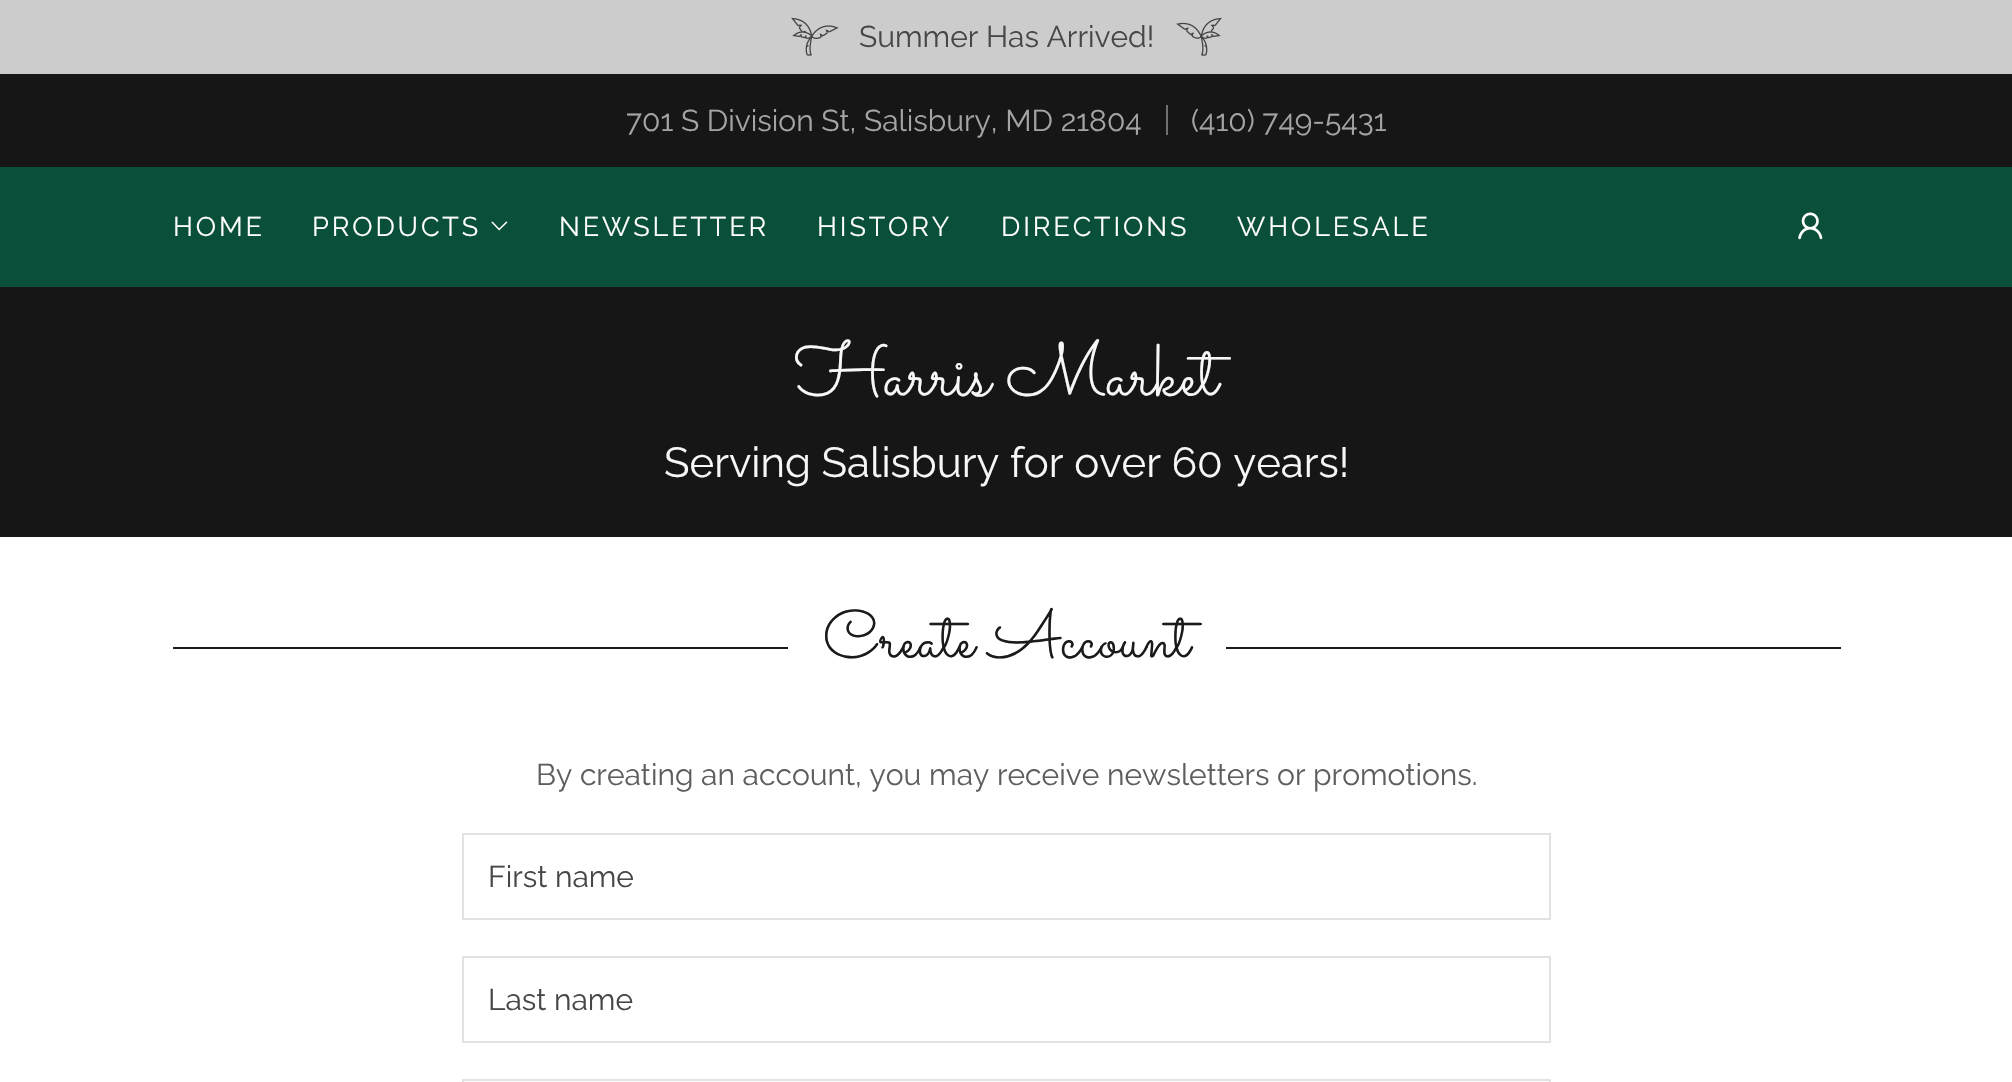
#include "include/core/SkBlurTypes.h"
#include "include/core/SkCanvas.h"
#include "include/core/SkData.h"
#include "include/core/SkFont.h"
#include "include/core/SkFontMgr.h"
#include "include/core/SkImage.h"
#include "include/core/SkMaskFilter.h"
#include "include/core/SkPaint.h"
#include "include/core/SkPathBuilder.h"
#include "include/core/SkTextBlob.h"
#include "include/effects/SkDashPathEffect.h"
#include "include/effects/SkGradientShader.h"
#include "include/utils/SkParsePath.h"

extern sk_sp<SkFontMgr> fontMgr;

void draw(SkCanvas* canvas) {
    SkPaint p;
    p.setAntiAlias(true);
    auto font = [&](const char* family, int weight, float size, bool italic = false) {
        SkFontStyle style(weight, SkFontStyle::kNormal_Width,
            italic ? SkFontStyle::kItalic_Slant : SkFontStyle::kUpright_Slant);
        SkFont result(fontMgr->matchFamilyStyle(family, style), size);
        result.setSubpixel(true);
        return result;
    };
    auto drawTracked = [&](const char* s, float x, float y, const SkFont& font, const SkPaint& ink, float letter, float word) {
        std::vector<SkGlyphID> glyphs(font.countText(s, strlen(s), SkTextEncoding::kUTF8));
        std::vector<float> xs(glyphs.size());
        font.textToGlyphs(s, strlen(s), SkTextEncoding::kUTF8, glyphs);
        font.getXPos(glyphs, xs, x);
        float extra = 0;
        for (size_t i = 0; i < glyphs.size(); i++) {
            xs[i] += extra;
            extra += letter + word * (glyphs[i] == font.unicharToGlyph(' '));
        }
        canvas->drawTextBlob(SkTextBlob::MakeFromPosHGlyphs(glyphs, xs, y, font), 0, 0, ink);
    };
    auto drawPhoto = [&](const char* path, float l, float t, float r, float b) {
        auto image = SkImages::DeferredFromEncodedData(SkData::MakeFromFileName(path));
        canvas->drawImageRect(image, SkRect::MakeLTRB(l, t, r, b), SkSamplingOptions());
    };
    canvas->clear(0xFF161616);
    p.setColor(0xFFCCCCCC);
    canvas->drawRect(SkRect::MakeLTRB(0, 0, 2012, 74), p);
    drawPhoto("media/1.png", 791, 17, 839, 56);
    auto font1 = font("Raleway", 400, 30);
    p.setColor(0xFF474747);
    canvas->drawString("Summer Has Arrived!", 859, 47, font1, p);
    drawPhoto("media/2.png", 1176, 17, 1222, 56);
    p.setColor(0xFFA4A4A4);
    canvas->drawString("701 S Division St, Salisbury, MD 21804", 626, 131, font1, p);
    p.setColor(0xFF707070);
    canvas->drawRect(SkRect::MakeLTRB(1166, 105, 1168, 135), p);
    p.setColor(0xFFA4A4A4);
    canvas->drawString("(410) 749-5431", 1191, 131, font1, p);
    p.setColor(0xFF0A4F39);
    canvas->drawRect(SkRect::MakeLTRB(0, 167, 2012, 287), p);
    auto font2 = font("Raleway", 400, 27);
    p.setColor(0xFFFFFFFF);
    drawTracked("HOME", 173, 236, font2, p, 2.9f, 0);
    drawTracked("PRODUCTS", 312, 236, font2, p, 2.9f, 0);
    drawPhoto("media/3.png", 491, 221, 508, 231);
    {
        const struct { const char* s; float x, y; } items[] = {
            {"NEWSLETTER", 559, 236},
            {"HISTORY", 817, 236},
            {"DIRECTIONS", 1001, 236},
            {"WHOLESALE", 1237, 236},
        };
        for (auto [s, x, y] : items) {
            drawTracked(s, x, y, font2, p, 2.9f, 0);
        }
    }
    drawPhoto("media/4.png", 1798, 212, 1823, 240);
    auto font3 = font("Sacramento", 400, 75);
    p.setColor(0xFFF7F7F7);
    canvas->drawString("Harris Market", 795, 395, font3, p);
    auto font4 = font("Raleway", 400, 42);
    canvas->drawString("Serving Salisbury for over 60 years!", 664, 477, font4, p);
    p.setColor(0xFFFFFFFF);
    canvas->drawRect(SkRect::MakeLTRB(0, 537, 2012, 1082), p);
    p.setColor(0xFF1B1B1B);
    canvas->drawRect(SkRect::MakeLTRB(173, 647, 788, 649), p);
    auto font5 = font("Sacramento", 400, 67.5f);
    canvas->drawString("Create Account", 823, 657, font5, p);
    canvas->drawRect(SkRect::MakeLTRB(1226, 647, 1841, 649), p);
    p.setColor(0xFF5E5E5E);
    canvas->drawString("By creating an account, you may receive newsletters or promotions.", 536, 785, font1, p);
    p.setStyle(SkPaint::kStroke_Style);
    p.setStrokeWidth(2);
    p.setColor(0xFFE2E2E2);
    canvas->drawRect(SkRect::MakeLTRB(463, 834, 1550, 919), p);
    p.setStyle(SkPaint::kFill_Style);
    p.setColor(0xFF474747);
    canvas->drawString("First name", 488, 887, font1, p);
    p.setStyle(SkPaint::kStroke_Style);
    p.setColor(0xFFE2E2E2);
    canvas->drawRect(SkRect::MakeLTRB(463, 957, 1550, 1042), p);
    p.setStyle(SkPaint::kFill_Style);
    p.setColor(0xFF474747);
    canvas->drawString("Last name", 488, 1010, font1, p);
    p.setStyle(SkPaint::kStroke_Style);
    p.setColor(0xFFE2E2E2);
    canvas->drawRect(SkRect::MakeLTRB(463, 1080, 1550, 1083), p);
}
